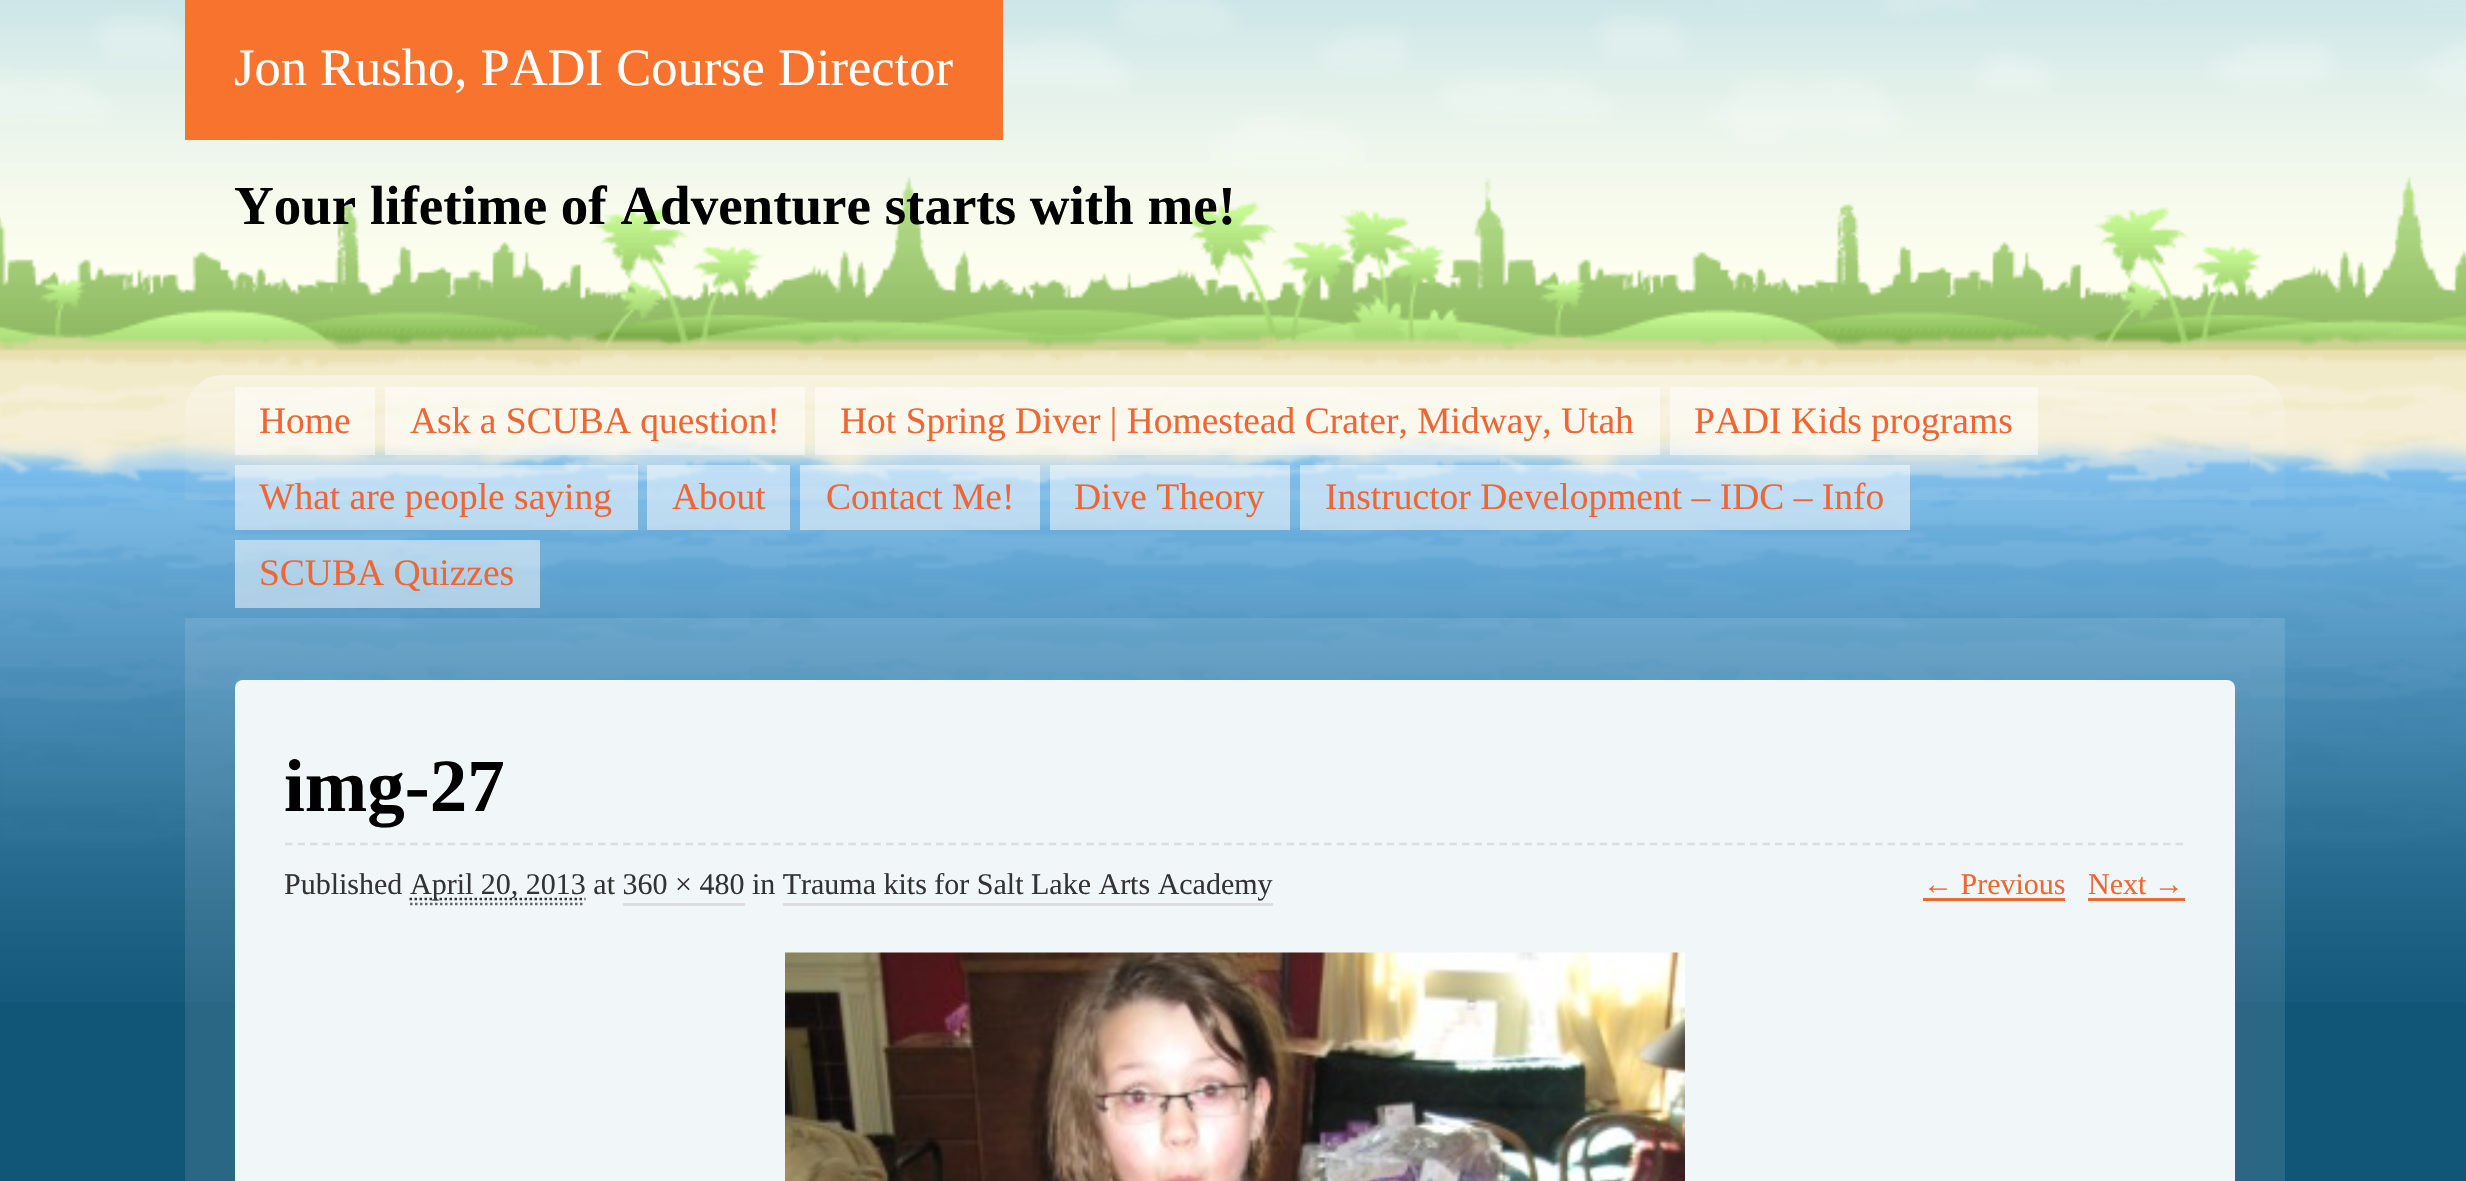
#include "include/core/SkBlurTypes.h"
#include "include/core/SkCanvas.h"
#include "include/core/SkData.h"
#include "include/core/SkFont.h"
#include "include/core/SkFontMgr.h"
#include "include/core/SkImage.h"
#include "include/core/SkMaskFilter.h"
#include "include/core/SkPaint.h"
#include "include/core/SkPathBuilder.h"
#include "include/core/SkTextBlob.h"
#include "include/effects/SkDashPathEffect.h"
#include "include/effects/SkGradientShader.h"
#include "include/utils/SkParsePath.h"

extern sk_sp<SkFontMgr> fontMgr;

void draw(SkCanvas* canvas) {
    SkPaint p;
    p.setAntiAlias(true);
    auto font = [&](const char* family, int weight, float size, bool italic = false) {
        SkFontStyle style(weight, SkFontStyle::kNormal_Width,
            italic ? SkFontStyle::kItalic_Slant : SkFontStyle::kUpright_Slant);
        SkFont result(fontMgr->matchFamilyStyle(family, style), size);
        result.setSubpixel(true);
        return result;
    };
    auto drawPhoto = [&](const char* path, float l, float t, float r, float b) {
        auto image = SkImages::DeferredFromEncodedData(SkData::MakeFromFileName(path));
        canvas->drawImageRect(image, SkRect::MakeLTRB(l, t, r, b), SkSamplingOptions());
    };
    canvas->clear(0xFF115577);
    drawPhoto("media/1.png", 0, 0, 2466, 375);
    p.setColor(0xFFF7732E);
    canvas->drawRect(SkRect::MakeLTRB(185, 0, 1003, 140), p);
    auto font1 = font("Liberation Serif", 400, 52.5f);
    p.setColor(0xFFFFFFFF);
    canvas->drawString("Jon Rusho, PADI Course Director", 234, 85, font1, p);
    auto font2 = font("Liberation Serif", 700, 55);
    p.setColor(0xFF000000);
    canvas->drawString("Your lifetime of Adventure starts with me!", 234, 224, font2, p);
    drawPhoto("media/2.png", 0, 375, 2466, 1002);
    drawPhoto("media/3.png", 185, 375, 2285, 500);
    p.setColor(0x80FFFFFF);
    canvas->drawRect(SkRect::MakeLTRB(235, 387, 375, 455), p);
    auto font3 = font("Liberation Serif", 400, 37.5f);
    p.setColor(0xFFEE6633);
    canvas->drawString("Home", 259, 433, font3, p);
    p.setColor(0x80FFFFFF);
    canvas->drawRect(SkRect::MakeLTRB(385, 387, 805, 455), p);
    p.setColor(0xFFEE6633);
    canvas->drawString("Ask a SCUBA question!", 410, 433, font3, p);
    p.setColor(0x80FFFFFF);
    canvas->drawRect(SkRect::MakeLTRB(815, 387, 1660, 455), p);
    p.setColor(0xFFEE6633);
    canvas->drawString("Hot Spring Diver | Homestead Crater, Midway, Utah", 840, 433, font3, p);
    p.setColor(0x80FFFFFF);
    canvas->drawRect(SkRect::MakeLTRB(1670, 387, 2038, 455), p);
    p.setColor(0xFFEE6633);
    canvas->drawString("PADI Kids programs", 1694, 433, font3, p);
    p.setColor(0x80FFFFFF);
    canvas->drawRect(SkRect::MakeLTRB(235, 465, 638, 530), p);
    p.setColor(0xFFEE6633);
    canvas->drawString("What are people saying", 259, 509, font3, p);
    p.setColor(0x80FFFFFF);
    canvas->drawRect(SkRect::MakeLTRB(647, 465, 790, 530), p);
    p.setColor(0xFFEE6633);
    canvas->drawString("About", 672, 509, font3, p);
    p.setColor(0x80FFFFFF);
    canvas->drawRect(SkRect::MakeLTRB(800, 465, 1040, 530), p);
    p.setColor(0xFFEE6633);
    canvas->drawString("Contact Me!", 826, 509, font3, p);
    p.setColor(0x80FFFFFF);
    canvas->drawRect(SkRect::MakeLTRB(1050, 465, 1290, 530), p);
    p.setColor(0xFFEE6633);
    canvas->drawString("Dive Theory", 1074, 509, font3, p);
    p.setColor(0x80FFFFFF);
    canvas->drawRect(SkRect::MakeLTRB(1300, 465, 1910, 530), p);
    p.setColor(0xFFEE6633);
    canvas->drawString("Instructor Development – IDC – Info", 1325, 509, font3, p);
    p.setColor(0x80FFFFFF);
    canvas->drawRect(SkRect::MakeLTRB(235, 540, 540, 608), p);
    p.setColor(0xFFEE6633);
    canvas->drawString("SCUBA Quizzes", 259, 585, font3, p);
    p.setColor(0x1AFFFFFF);
    canvas->drawRect(SkRect::MakeLTRB(185, 618, 2285, 1181), p);
    p.setColor(0xFFF1F6F9);
    canvas->drawRoundRect(SkRect::MakeLTRB(235, 680, 2235, 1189), 8, 8, p);
    p.setStyle(SkPaint::kStroke_Style);
    p.setStrokeWidth(2.5f);
    p.setColor(0xFFDDDDDD);
    p.setPathEffect(SkDashPathEffect::Make({{7.5f, 5.02f}}, 0));
    canvas->drawPath(SkPathBuilder().moveTo(285, 844).lineTo(2185, 844).detach(), p);
    p.setPathEffect(nullptr);
    auto font4 = font("Liberation Serif", 700, 75);
    p.setStyle(SkPaint::kFill_Style);
    p.setColor(0xFF000000);
    canvas->drawString("img-27", 284, 811, font4, p);
    auto font5 = font("Liberation Serif", 400, 30);
    p.setColor(0xFF333333);
    canvas->drawString("Published", 284, 894, font5, p);
    p.setStyle(SkPaint::kStroke_Style);
    p.setPathEffect(SkDashPathEffect::Make({{2.5f, 2.5f}}, 0));
    canvas->drawPath(SkPathBuilder().moveTo(409.5f, 899).lineTo(585.5f, 899).detach(), p);
    p.setPathEffect(nullptr);
    p.setStyle(SkPaint::kFill_Style);
    canvas->drawString("April 20, 2013 at 360 × 480 in Trauma kits for Salt Lake Arts Academy", 410, 894, font5, p);
    p.setStyle(SkPaint::kStroke_Style);
    p.setColor(0xFF666666);
    p.setPathEffect(SkDashPathEffect::Make({{2.5f, 2.5f}}, 0));
    canvas->drawPath(SkPathBuilder().moveTo(410, 904).lineTo(585, 904).detach(), p);
    p.setPathEffect(nullptr);
    p.setStyle(SkPaint::kFill_Style);
    p.setColor(0xFFDDDDDD);
    canvas->drawRect(SkRect::MakeLTRB(623, 903, 745, 906), p);
    canvas->drawRect(SkRect::MakeLTRB(783, 903, 1273, 906), p);
    p.setColor(0xFFEE6633);
    canvas->drawString("← Previous", 1923, 894, font5, p);
    canvas->drawRect(SkRect::MakeLTRB(1923, 898, 2065, 901), p);
    canvas->drawString("Next →", 2088, 894, font5, p);
    canvas->drawRect(SkRect::MakeLTRB(2088, 898, 2185, 901), p);
    drawPhoto("media/4.png", 785, 952, 1685, 1181);
}
